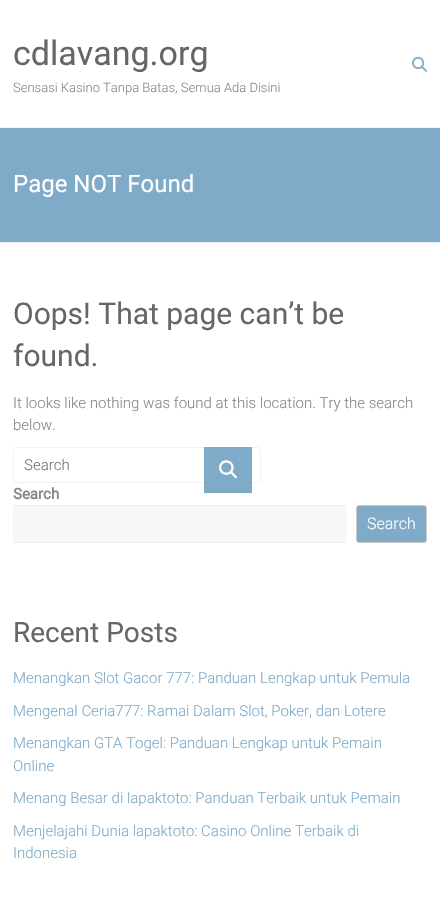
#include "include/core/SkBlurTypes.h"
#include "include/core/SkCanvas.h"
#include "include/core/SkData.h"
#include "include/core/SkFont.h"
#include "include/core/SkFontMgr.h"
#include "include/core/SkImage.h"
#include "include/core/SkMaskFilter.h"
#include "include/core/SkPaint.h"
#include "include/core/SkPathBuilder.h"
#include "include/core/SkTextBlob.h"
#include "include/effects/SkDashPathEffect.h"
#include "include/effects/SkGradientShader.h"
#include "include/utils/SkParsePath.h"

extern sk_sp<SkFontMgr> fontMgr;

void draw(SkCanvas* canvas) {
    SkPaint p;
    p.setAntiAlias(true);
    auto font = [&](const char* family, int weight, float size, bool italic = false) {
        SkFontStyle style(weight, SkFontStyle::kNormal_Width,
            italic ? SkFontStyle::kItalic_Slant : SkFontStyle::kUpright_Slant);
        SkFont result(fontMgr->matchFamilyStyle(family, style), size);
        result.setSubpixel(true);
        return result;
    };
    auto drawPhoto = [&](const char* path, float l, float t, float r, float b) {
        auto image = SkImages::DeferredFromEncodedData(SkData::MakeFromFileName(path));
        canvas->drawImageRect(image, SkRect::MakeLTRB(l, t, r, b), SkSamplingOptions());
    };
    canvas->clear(0xFFFFFFFF);
    p.setColor(0xFFF2F2F2);
    canvas->drawRect(SkRect::MakeLTRB(0, 127, 440, 128), p);
    auto font1 = font("Roboto", 400, 34);
    p.setColor(0xFF666666);
    canvas->drawString("cdlavang.org", 13, 65, font1, p);
    auto font2 = font("Roboto", 300, 13);
    p.setColor(0xFF888888);
    canvas->drawString("Sensasi Kasino Tanpa Batas, Semua Ada Disini", 13, 92, font2, p);
    drawPhoto("media/1.png", 412, 56, 427, 72);
    p.setColor(0xFF80ABC8);
    canvas->drawRect(SkRect::MakeLTRB(0, 128, 440, 242), p);
    p.setColor(0xFFF2F2F2);
    canvas->drawRect(SkRect::MakeLTRB(0, 242, 440, 243), p);
    auto font3 = font("Roboto", 400, 24);
    p.setColor(0xFFFFFFFF);
    canvas->drawString("Page NOT Found", 13, 192, font3, p);
    auto font4 = font("Roboto", 400, 30);
    p.setColor(0xFF666666);
    canvas->drawString("Oops! That page can’t be", 13, 324, font4, p);
    canvas->drawString("found.", 13, 366, font4, p);
    auto font5 = font("Roboto", 300, 15);
    p.setColor(0xFF888888);
    canvas->drawString("It looks like nothing was found at this location. Try the search", 13, 408, font5, p);
    canvas->drawString("below.", 13, 430, font5, p);
    p.setStyle(SkPaint::kStroke_Style);
    p.setStrokeWidth(1);
    p.setColor(0xFFF2F2F2);
    canvas->drawRoundRect(SkRect::MakeLTRB(13.5f, 447.5f, 260.5f, 482.5f), 2.5f, 2.5f, p);
    p.setStyle(SkPaint::kFill_Style);
    p.setColor(0xFF757575);
    canvas->drawString("Search", 24, 470, font5, p);
    p.setColor(0xFF80ABC8);
    canvas->drawRect(SkRect::MakeLTRB(204, 447, 252, 493), p);
    drawPhoto("media/2.png", 219, 460, 237, 479);
    auto font6 = font("Roboto", 700, 15);
    p.setColor(0xFF888888);
    canvas->drawString("Search", 13, 499, font6, p);
    p.setColor(0xFFF8F8F8);
    canvas->drawRoundRect(SkRect::MakeLTRB(13.5f, 505.5f, 345.5f, 542.5f), 2.5f, 2.5f, p);
    p.setStyle(SkPaint::kStroke_Style);
    p.setColor(0xFFF2F2F2);
    canvas->drawRoundRect(SkRect::MakeLTRB(13.5f, 505.5f, 345.5f, 542.5f), 2.5f, 2.5f, p);
    p.setStyle(SkPaint::kFill_Style);
    p.setColor(0xFF80ABC8);
    canvas->drawRoundRect(SkRect::MakeLTRB(356.5f, 505.5f, 426.5f, 542.5f), 2.5f, 2.5f, p);
    p.setStyle(SkPaint::kStroke_Style);
    p.setColor(0xFFCCCCCC);
    canvas->drawRoundRect(SkRect::MakeLTRB(356.5f, 505.5f, 426.5f, 542.5f), 2.5f, 2.5f, p);
    auto font7 = font("Roboto", 300, 16);
    p.setStyle(SkPaint::kFill_Style);
    p.setColor(0xFFFFFFFF);
    canvas->drawString("Search", 367, 529, font7, p);
    auto font8 = font("Roboto", 400, 28);
    p.setColor(0xFF666666);
    canvas->drawString("Recent Posts", 13, 642, font8, p);
    p.setColor(0xFF80ABC8);
    {
        const struct { const char* s; float x, y; } items[] = {
            {"Menangkan Slot Gacor 777: Panduan Lengkap untuk Pemula", 13, 683},
            {"Mengenal Ceria777: Ramai Dalam Slot, Poker, dan Lotere", 13, 716},
            {"Menangkan GTA Togel: Panduan Lengkap untuk Pemain", 13, 748},
            {"Online", 13, 771},
            {"Menang Besar di lapaktoto: Panduan Terbaik untuk Pemain", 13, 803},
            {"Menjelajahi Dunia lapaktoto: Casino Online Terbaik di", 13, 836},
            {"Indonesia", 13, 858},
        };
        for (auto [s, x, y] : items) {
            canvas->drawString(s, x, y, font5, p);
        }
    }
}
